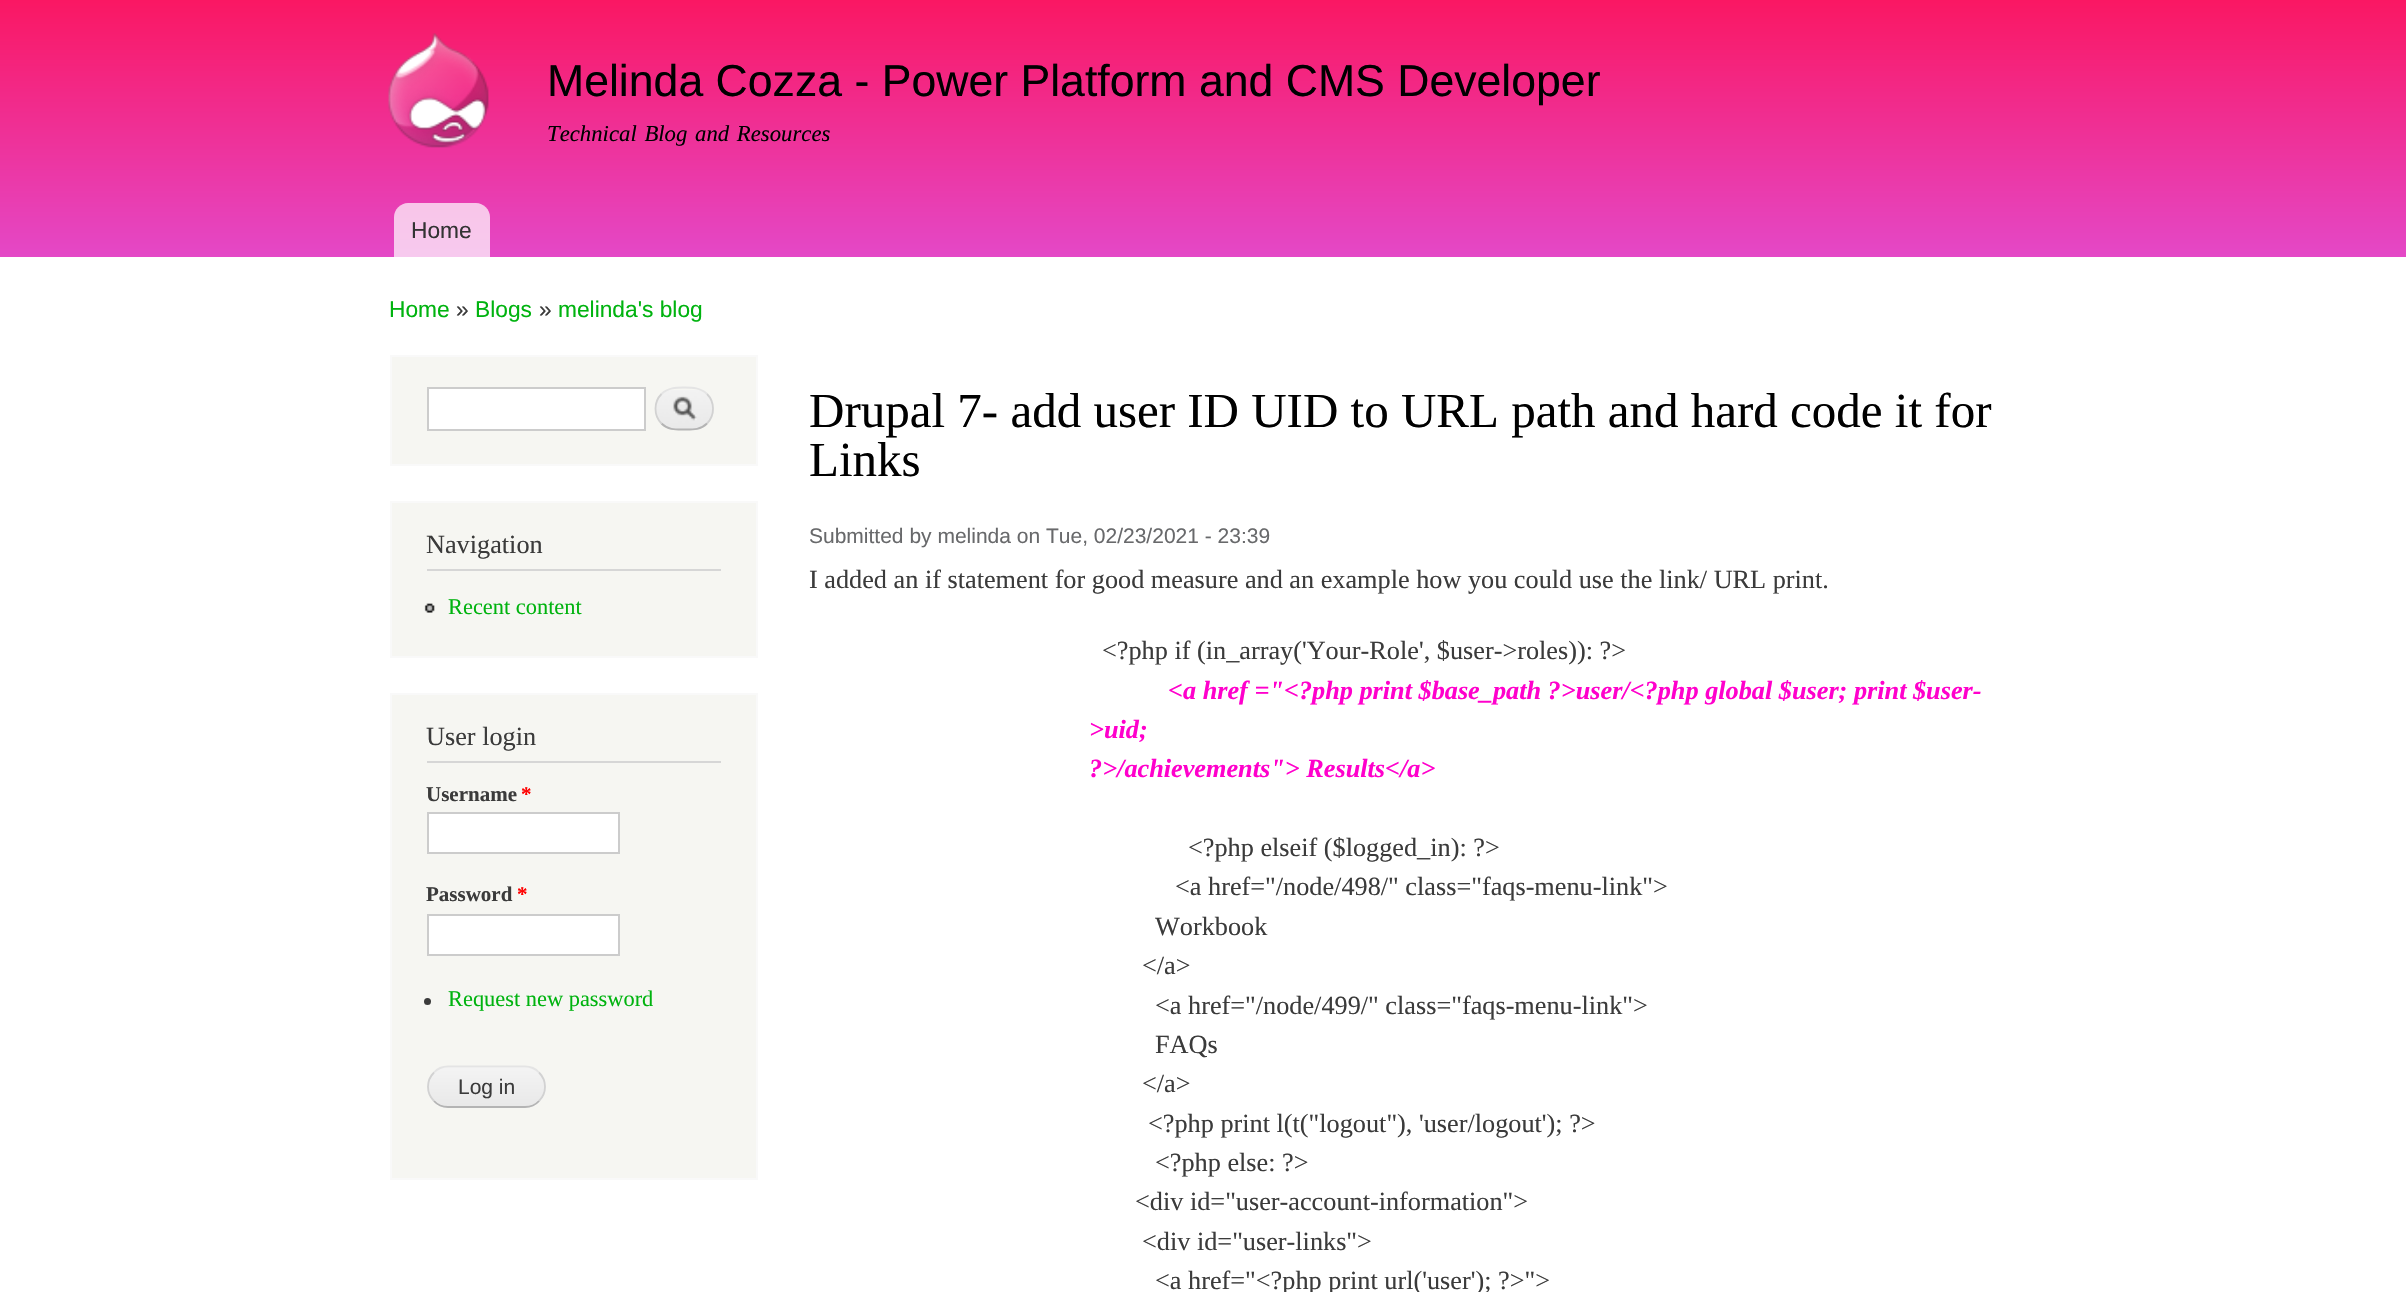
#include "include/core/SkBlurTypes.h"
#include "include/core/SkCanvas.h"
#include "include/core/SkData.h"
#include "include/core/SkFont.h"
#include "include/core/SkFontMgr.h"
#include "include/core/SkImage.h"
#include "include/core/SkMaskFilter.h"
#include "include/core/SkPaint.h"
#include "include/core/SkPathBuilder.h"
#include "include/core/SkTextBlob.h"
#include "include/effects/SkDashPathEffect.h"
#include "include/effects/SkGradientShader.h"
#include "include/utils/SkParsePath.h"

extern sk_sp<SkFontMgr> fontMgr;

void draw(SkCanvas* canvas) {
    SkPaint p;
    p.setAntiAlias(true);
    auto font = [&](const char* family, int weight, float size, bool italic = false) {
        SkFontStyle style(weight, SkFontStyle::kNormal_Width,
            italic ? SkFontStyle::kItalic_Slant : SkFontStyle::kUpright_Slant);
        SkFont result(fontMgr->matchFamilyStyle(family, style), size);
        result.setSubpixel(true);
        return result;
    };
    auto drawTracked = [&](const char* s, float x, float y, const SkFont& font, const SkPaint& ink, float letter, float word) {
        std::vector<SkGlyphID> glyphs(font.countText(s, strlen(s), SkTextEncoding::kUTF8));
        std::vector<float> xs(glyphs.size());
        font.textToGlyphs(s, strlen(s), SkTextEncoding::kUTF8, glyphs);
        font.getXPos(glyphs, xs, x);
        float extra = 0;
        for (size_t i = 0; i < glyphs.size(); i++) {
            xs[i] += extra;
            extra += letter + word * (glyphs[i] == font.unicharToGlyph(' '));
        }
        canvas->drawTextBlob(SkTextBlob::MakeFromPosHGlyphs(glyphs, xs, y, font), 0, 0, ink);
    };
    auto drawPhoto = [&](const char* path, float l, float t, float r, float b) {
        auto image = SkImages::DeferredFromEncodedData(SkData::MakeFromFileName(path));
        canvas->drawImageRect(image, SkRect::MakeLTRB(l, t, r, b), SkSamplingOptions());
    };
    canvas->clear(0xFFFFFFFF);
    {
        const SkColor colors[] = {0xFFFA1763, 0xFFE448C7};
        const float stops[] = {0, 1};
        const SkPoint ends[] = {{1203, 0}, {1203, 257}};
        p.setShader(SkGradientShader::MakeLinear(ends, colors, stops, 2, SkTileMode::kClamp));
        p.setAlpha(255);
    }
    canvas->drawRect(SkRect::MakeLTRB(0, 0, 2406, 257), p);
    drawPhoto("media/1.png", 388, 33, 489, 148);
    auto font1 = font("Liberation Sans", 400, 44.6f);
    p.setShader(nullptr);
    p.setColor(0xFF000000);
    canvas->drawString("Melinda Cozza - Power Platform and CMS Developer", 547, 96, font1, p);
    auto font2 = font("Liberation Serif", 400, 22.75f, true);
    drawTracked("Technical Blog and Resources", 547, 141, font2, p, 0, 2);
    p.setColor(0xB3FFFFFF);
    canvas->drawPath(SkPathBuilder().moveTo(408, 203).lineTo(476, 203).cubicTo(483.5f, 203, 490, 209.5f, 490, 217).lineTo(490, 257).lineTo(394, 257).lineTo(394, 217).cubicTo(394, 209.5f, 400.5f, 203, 408, 203).close().detach(), p);
    auto font3 = font("Liberation Sans", 400, 22.75f);
    p.setColor(0xFF333333);
    canvas->drawString("Home", 411, 238, font3, p);
    p.setColor(0xFF00B30F);
    canvas->drawString("Home", 389, 317, font3, p);
    p.setColor(0xFF3B3B3B);
    canvas->drawString("»", 456, 317, font3, p);
    p.setColor(0xFF00B30F);
    canvas->drawString("Blogs", 475, 317, font3, p);
    p.setColor(0xFF3B3B3B);
    canvas->drawString("»", 539, 317, font3, p);
    p.setColor(0xFF00B30F);
    canvas->drawString("melinda's blog", 558, 317, font3, p);
    p.setColor(0xFFF6F6F2);
    canvas->drawRect(SkRect::MakeLTRB(391, 356, 757, 465), p);
    p.setStyle(SkPaint::kStroke_Style);
    p.setStrokeWidth(2);
    p.setColor(0xFFF9F9F9);
    canvas->drawRect(SkRect::MakeLTRB(391, 356, 757, 465), p);
    p.setStyle(SkPaint::kFill_Style);
    p.setColor(0xFFFFFFFF);
    canvas->drawRect(SkRect::MakeLTRB(428, 388, 645, 430), p);
    p.setStyle(SkPaint::kStroke_Style);
    p.setColor(0xFFCCCCCC);
    canvas->drawRect(SkRect::MakeLTRB(428, 388, 645, 430), p);
    drawPhoto("media/2.png", 655, 390, 714, 430);
    p.setStrokeWidth(1.8f);
    p.setColor(0xFFE4E4E4);
    canvas->drawPath(SkPathBuilder().moveTo(661.5f, 394).cubicTo(668, 387.5f, 676, 387.5f, 684, 387.5f).cubicTo(692.5f, 387.5f, 700.5f, 387.5f, 707, 394).detach(), p);
    p.setColor(0xFFD2D2D2);
    canvas->drawPath(SkPathBuilder().moveTo(707, 394).cubicTo(715, 402, 715, 415.5f, 707, 423.5f).detach(), p);
    p.setColor(0xFFB4B4B4);
    canvas->drawPath(SkPathBuilder().moveTo(707, 423.5f).cubicTo(700.5f, 430, 692.5f, 429.5f, 684, 429.5f).cubicTo(676, 429.5f, 668, 430, 661.5f, 423.5f).detach(), p);
    p.setColor(0xFFD2D2D2);
    canvas->drawPath(SkPathBuilder().moveTo(661.5f, 423.5f).cubicTo(653.5f, 415.5f, 653.5f, 402, 661.5f, 394).detach(), p);
    p.setStyle(SkPaint::kFill_Style);
    p.setColor(0xFFF6F6F2);
    canvas->drawRect(SkRect::MakeLTRB(391, 502, 757, 657), p);
    p.setStyle(SkPaint::kStroke_Style);
    p.setStrokeWidth(2);
    p.setColor(0xFFF9F9F9);
    canvas->drawRect(SkRect::MakeLTRB(391, 502, 757, 657), p);
    p.setStyle(SkPaint::kFill_Style);
    p.setColor(0xFFD6D6D6);
    canvas->drawRect(SkRect::MakeLTRB(427, 569, 721, 571), p);
    auto font4 = font("Liberation Serif", 400, 26.25f);
    p.setColor(0xFF3B3B3B);
    canvas->drawString("Navigation", 426, 553, font4, p);
    drawPhoto("media/3.png", 424, 603, 435, 613);
    auto font5 = font("Liberation Serif", 400, 22.4f);
    p.setColor(0xFF00B30F);
    canvas->drawString("Recent content", 448, 614, font5, p);
    p.setColor(0xFFF6F6F2);
    canvas->drawRect(SkRect::MakeLTRB(391, 694, 757, 1179), p);
    p.setStyle(SkPaint::kStroke_Style);
    p.setColor(0xFFF9F9F9);
    canvas->drawRect(SkRect::MakeLTRB(391, 694, 757, 1179), p);
    p.setStyle(SkPaint::kFill_Style);
    p.setColor(0xFFD6D6D6);
    canvas->drawRect(SkRect::MakeLTRB(427, 761, 721, 763), p);
    p.setColor(0xFF3B3B3B);
    canvas->drawString("User login", 426, 745, font4, p);
    auto font6 = font("Liberation Serif", 700, 21);
    canvas->drawString("Username", 426, 801, font6, p);
    p.setColor(0xFFFF0000);
    canvas->drawString("*", 521, 801, font6, p);
    p.setColor(0xFFFFFFFF);
    canvas->drawRect(SkRect::MakeLTRB(428, 813, 619, 853), p);
    p.setStyle(SkPaint::kStroke_Style);
    p.setColor(0xFFCCCCCC);
    canvas->drawRect(SkRect::MakeLTRB(428, 813, 619, 853), p);
    p.setStyle(SkPaint::kFill_Style);
    p.setColor(0xFF3B3B3B);
    canvas->drawString("Password", 426, 901, font6, p);
    p.setColor(0xFFFF0000);
    canvas->drawString("*", 517, 901, font6, p);
    p.setColor(0xFFFFFFFF);
    canvas->drawRect(SkRect::MakeLTRB(428, 915, 619, 955), p);
    p.setStyle(SkPaint::kStroke_Style);
    p.setColor(0xFFCCCCCC);
    canvas->drawRect(SkRect::MakeLTRB(428, 915, 619, 955), p);
    p.setStyle(SkPaint::kFill_Style);
    p.setColor(0xFF3B3B3B);
    canvas->drawCircle(427.5f, 1001.5f, 3.5f, p);
    p.setColor(0xFF00B30F);
    canvas->drawString("Request new password", 448, 1006, font5, p);
    p.setColor(0xFFFFFFFF);
    canvas->drawRoundRect(SkRect::MakeLTRB(427, 1066, 546, 1108), 21, 21, p);
    drawPhoto("media/4.png", 427, 1067, 546, 1108);
    p.setStyle(SkPaint::kStroke_Style);
    p.setStrokeWidth(1.8f);
    p.setColor(0xFFE4E4E4);
    canvas->drawPath(SkPathBuilder().moveTo(434, 1072.5f).cubicTo(437.5f, 1068.5f, 442.5f, 1066.5f, 448, 1066.5f).lineTo(525, 1066.5f).cubicTo(530.5f, 1066.5f, 535.5f, 1068.5f, 539, 1072.5f).detach(), p);
    p.setColor(0xFFD2D2D2);
    canvas->drawPath(SkPathBuilder().moveTo(539, 1072.5f).cubicTo(547, 1080.5f, 547, 1093, 539, 1101).detach(), p);
    p.setColor(0xFFB4B4B4);
    canvas->drawPath(SkPathBuilder().moveTo(539, 1101).cubicTo(535.5f, 1105, 530.5f, 1107, 525, 1107).lineTo(448, 1107).cubicTo(442.5f, 1107, 437.5f, 1105, 434, 1101).detach(), p);
    p.setColor(0xFFD2D2D2);
    canvas->drawPath(SkPathBuilder().moveTo(434, 1101).cubicTo(426, 1093, 426, 1080.5f, 434, 1072.5f).detach(), p);
    auto font7 = font("Liberation Sans", 400, 21);
    p.setStyle(SkPaint::kFill_Style);
    p.setColor(0xFF3B3B3B);
    canvas->drawString("Log in", 458, 1094, font7, p);
    auto font8 = font("Liberation Serif", 400, 49);
    p.setColor(0xFF000000);
    canvas->drawString("Drupal 7- add user ID UID to URL path and hard code it for", 809, 427, font8, p);
    canvas->drawString("Links", 809, 476, font8, p);
    p.setColor(0xFF68696B);
    canvas->drawString("Submitted by melinda on Tue, 02/23/2021 - 23:39", 809, 543, font7, p);
    p.setColor(0xFF3B3B3B);
    canvas->drawString("I added an if statement for good measure and an example how you could use the link/ URL print.", 809, 588, font4, p);
    canvas->drawString("<?php if (in_array('Your-Role', $user->roles)): ?>", 1102, 659, font4, p);
    auto font9 = font("Liberation Serif", 700, 26.25f, true);
    p.setColor(0xFFFF00CC);
    {
        const struct { const char* s; float x, y; } items[] = {
            {"<a href =\"<?php print $base_path ?>user/<?php global $user; print $user-", 1168, 699},
            {">uid;", 1089, 738},
            {"?>/achievements\"> Results</a>", 1089, 777},
        };
        for (auto [s, x, y] : items) {
            canvas->drawString(s, x, y, font9, p);
        }
    }
    p.setColor(0xFF3B3B3B);
    {
        const struct { const char* s; float x, y; } items[] = {
            {"<?php elseif ($logged_in): ?>", 1188, 856},
            {"<a href=\"/node/498/\" class=\"faqs-menu-link\">", 1175, 895},
            {"Workbook", 1155, 935},
            {"</a>", 1142, 974},
            {"<a href=\"/node/499/\" class=\"faqs-menu-link\">", 1155, 1014},
            {"FAQs", 1155, 1053},
            {"</a>", 1142, 1092},
            {"<?php print l(t(\"logout\"), 'user/logout'); ?>", 1148, 1132},
            {"<?php else: ?>", 1155, 1171},
            {"<div id=\"user-account-information\">", 1135, 1210},
            {"<div id=\"user-links\">", 1142, 1250},
            {"<a href=\"<?php print url('user'); ?>\">", 1155, 1289},
        };
        for (auto [s, x, y] : items) {
            canvas->drawString(s, x, y, font4, p);
        }
    }
}
